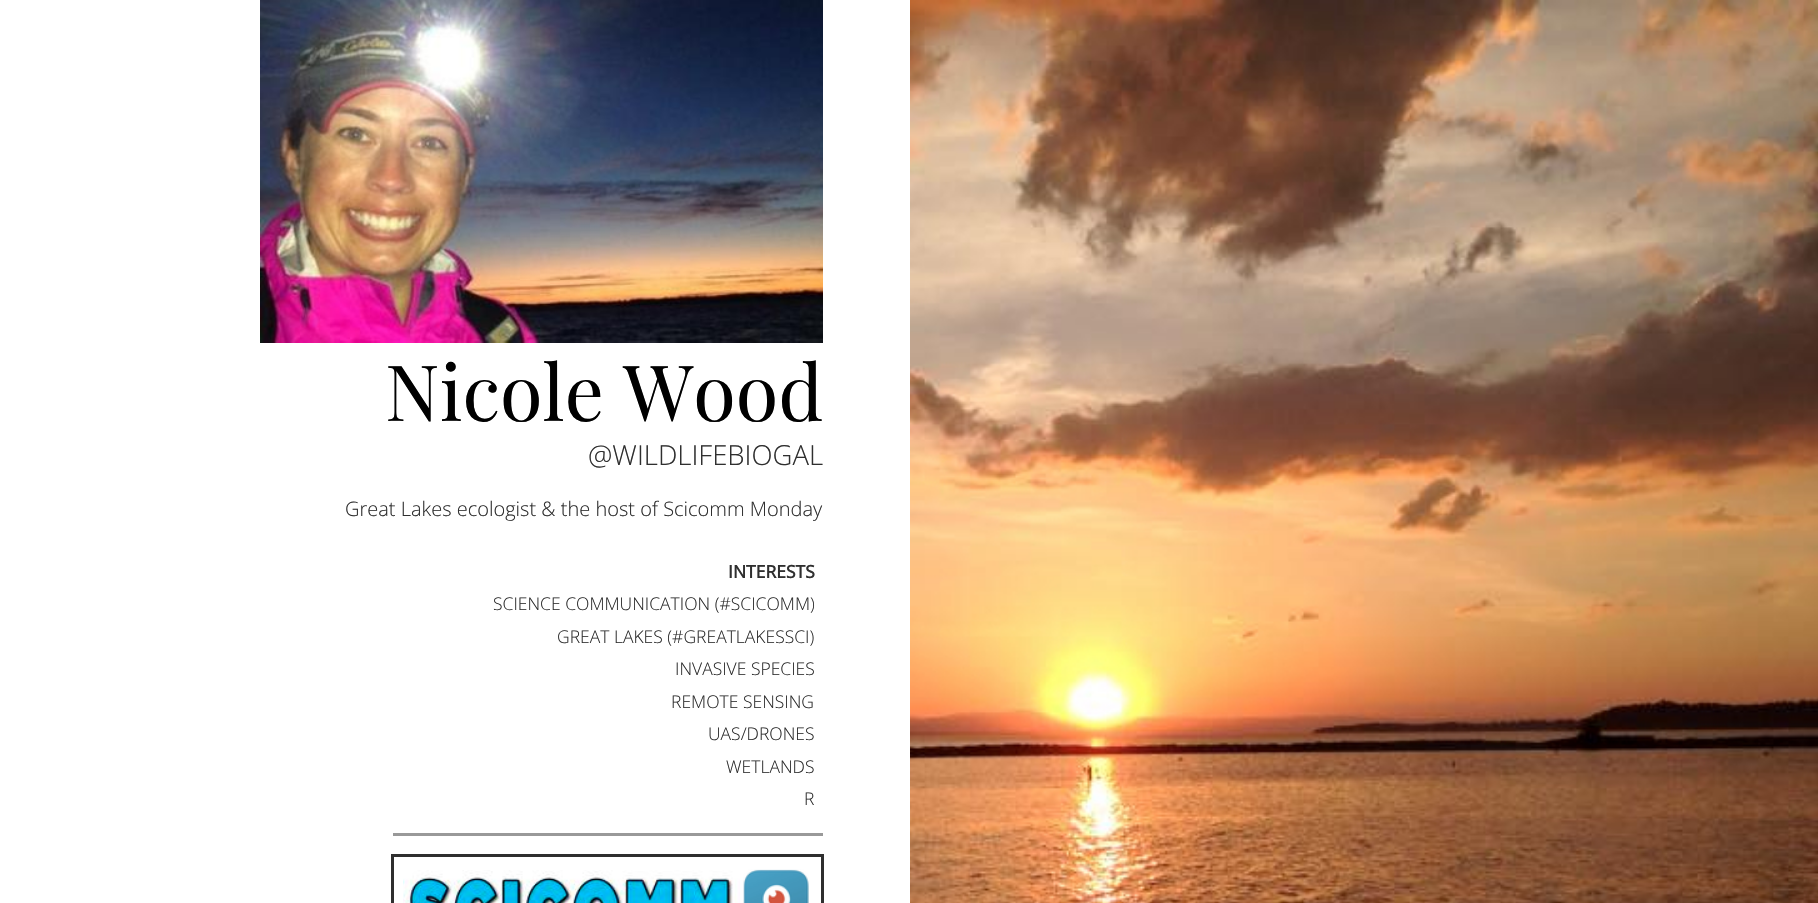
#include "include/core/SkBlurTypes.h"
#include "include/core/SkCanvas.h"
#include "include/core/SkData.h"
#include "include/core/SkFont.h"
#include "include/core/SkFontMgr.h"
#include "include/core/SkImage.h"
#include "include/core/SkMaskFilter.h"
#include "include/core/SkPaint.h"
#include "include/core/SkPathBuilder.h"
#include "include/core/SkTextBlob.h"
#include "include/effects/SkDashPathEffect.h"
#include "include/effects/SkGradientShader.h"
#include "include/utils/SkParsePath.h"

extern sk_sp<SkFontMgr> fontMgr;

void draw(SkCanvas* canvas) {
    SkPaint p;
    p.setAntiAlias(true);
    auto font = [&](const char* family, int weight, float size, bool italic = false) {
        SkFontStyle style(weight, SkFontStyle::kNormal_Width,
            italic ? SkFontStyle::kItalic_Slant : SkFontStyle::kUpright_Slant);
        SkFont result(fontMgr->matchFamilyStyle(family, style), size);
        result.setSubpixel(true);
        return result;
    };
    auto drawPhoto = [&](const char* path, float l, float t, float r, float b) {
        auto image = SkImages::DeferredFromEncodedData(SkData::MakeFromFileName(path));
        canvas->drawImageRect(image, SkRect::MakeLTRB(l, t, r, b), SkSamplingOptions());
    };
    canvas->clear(0xFFFFFFFF);
    drawPhoto("media/1.png", 910, 0, 1818, 903);
    drawPhoto("media/2.png", 260, 0, 823, 343);
    auto font1 = font("Playfair Display", 400, 77.5f);
    p.setColor(0xFF000000);
    canvas->drawString("Nicole Wood", 385, 421, font1, p);
    auto font2 = font("Open Sans", 300, 27.5f);
    p.setColor(0xFF2F2F2F);
    canvas->drawString("@WILDLIFEBIOGAL", 588, 465, font2, p);
    auto font3 = font("Open Sans", 300, 20);
    canvas->drawString("Great Lakes ecologist & the host of Scicomm Monday", 345, 516, font3, p);
    auto font4 = font("Open Sans", 700, 17.5f);
    canvas->drawString("INTERESTS", 728, 578, font4, p);
    auto font5 = font("Open Sans", 300, 17.5f);
    {
        const struct { const char* s; float x, y; } items[] = {
            {"SCIENCE COMMUNICATION (#SCICOMM)", 493, 610},
            {"GREAT LAKES (#GREATLAKESSCI)", 557, 643},
            {"INVASIVE SPECIES", 675, 675},
            {"REMOTE SENSING", 671, 708},
            {"UAS/DRONES", 708, 740},
            {"WETLANDS", 726, 773},
            {"R", 804, 805},
        };
        for (auto [s, x, y] : items) {
            canvas->drawString(s, x, y, font5, p);
        }
    }
    p.setColor(0xFF999999);
    canvas->drawRect(SkRect::MakeLTRB(393, 833, 823, 836), p);
    p.setStyle(SkPaint::kStroke_Style);
    p.setStrokeWidth(3);
    p.setColor(0xFF2F2F2F);
    canvas->drawRect(SkRect::MakeLTRB(392.5f, 855.5f, 822.5f, 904.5f), p);
    drawPhoto("media/3.png", 403, 870, 740, 903);
    drawPhoto("media/4.png", 743, 869, 809, 903);
}
